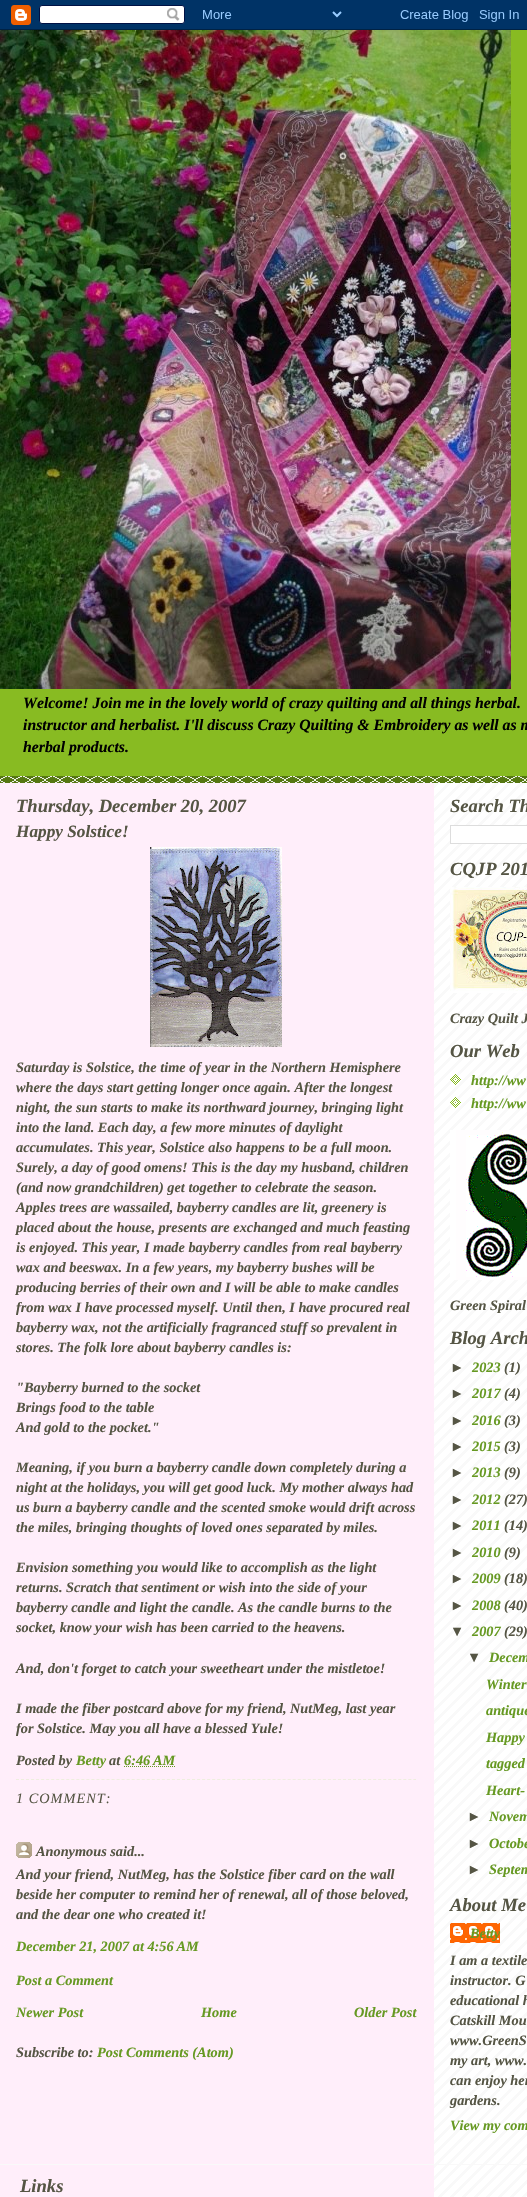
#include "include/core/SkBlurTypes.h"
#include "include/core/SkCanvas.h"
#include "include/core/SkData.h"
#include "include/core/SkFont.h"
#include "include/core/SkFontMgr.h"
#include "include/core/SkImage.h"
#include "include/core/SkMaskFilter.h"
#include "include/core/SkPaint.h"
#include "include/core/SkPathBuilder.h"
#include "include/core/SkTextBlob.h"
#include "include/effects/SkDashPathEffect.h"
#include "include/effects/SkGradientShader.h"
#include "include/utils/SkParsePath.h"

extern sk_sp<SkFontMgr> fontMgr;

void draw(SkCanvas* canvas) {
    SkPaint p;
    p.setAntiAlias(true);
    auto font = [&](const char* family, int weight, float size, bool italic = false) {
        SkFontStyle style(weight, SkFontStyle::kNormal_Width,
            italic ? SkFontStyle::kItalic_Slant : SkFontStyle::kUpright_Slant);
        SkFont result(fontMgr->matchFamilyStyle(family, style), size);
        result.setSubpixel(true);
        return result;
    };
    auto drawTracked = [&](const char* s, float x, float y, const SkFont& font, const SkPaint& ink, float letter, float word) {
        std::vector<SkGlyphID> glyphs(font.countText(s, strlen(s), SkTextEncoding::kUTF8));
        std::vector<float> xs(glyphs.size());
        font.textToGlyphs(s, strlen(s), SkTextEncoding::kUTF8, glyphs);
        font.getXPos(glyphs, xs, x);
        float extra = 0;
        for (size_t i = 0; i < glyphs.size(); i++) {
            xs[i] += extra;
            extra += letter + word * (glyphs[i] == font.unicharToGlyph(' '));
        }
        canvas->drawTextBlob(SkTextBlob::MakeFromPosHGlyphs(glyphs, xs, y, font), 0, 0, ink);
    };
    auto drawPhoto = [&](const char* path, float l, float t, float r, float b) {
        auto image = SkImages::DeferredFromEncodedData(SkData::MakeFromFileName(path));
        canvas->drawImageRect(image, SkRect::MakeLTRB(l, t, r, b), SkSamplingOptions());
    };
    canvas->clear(0xFFFFEEFA);
    drawPhoto("media/1.png", 0, 0, 527, 30);
    drawPhoto("media/2.png", 434, 783, 527, 2197);
    p.setColor(0xFF88BB22);
    canvas->drawRect(SkRect::MakeLTRB(0, 30, 527, 776), p);
    drawPhoto("media/3.png", 0, 776, 527, 783);
    drawPhoto("media/4.png", 0, 30, 511, 689);
    auto font1 = font("Liberation Serif", 700, 15.75f, true);
    p.setColor(0xFF000000);
    {
        const struct { const char* s; float x, y; } items[] = {
            {"Welcome! Join me in the lovely world of crazy quilting and all things herbal.", 23, 708},
            {"instructor and herbalist. I'll discuss Crazy Quilting & Embroidery as well as m", 23, 730},
            {"herbal products.", 23, 752},
        };
        for (auto [s, x, y] : items) {
            canvas->drawString(s, x, y, font1, p);
        }
    }
    auto font2 = font("Liberation Serif", 700, 18.6f, true);
    p.setColor(0xFF555544);
    canvas->drawString("Thursday, December 20, 2007", 16, 812, font2, p);
    auto font3 = font("Liberation Serif", 700, 17.25f, true);
    canvas->drawString("Happy Solstice!", 16, 837, font3, p);
    drawPhoto("media/5.png", 150, 847, 282, 1047);
    auto font4 = font("Liberation Serif", 700, 14.3f, true);
    {
        const struct { const char* s; float x, y; } items[] = {
            {"Saturday is Solstice, the time of year in the Northern Hemisphere", 16, 1072},
            {"where the days start getting longer once again. After the longest", 16, 1092},
            {"night, the sun starts to make its northward journey, bringing light", 16, 1112},
            {"into the land. Each day, a few more minutes of daylight", 16, 1132},
            {"accumulates. This year, Solstice also happens to be a full moon.", 16, 1152},
            {"Surely, a day of good omens! This is the day my husband, children", 16, 1172},
            {"(and now grandchildren) get together to celebrate the season.", 16, 1192},
            {"Apples trees are wassailed, bayberry candles are lit, greenery is", 16, 1212},
            {"placed about the house, presents are exchanged and much feasting", 16, 1232},
            {"is enjoyed. This year, I made bayberry candles from real bayberry", 16, 1252},
            {"wax and beeswax. In a few years, my bayberry bushes will be", 16, 1272},
            {"producing berries of their own and I will be able to make candles", 16, 1292},
            {"from wax I have processed myself. Until then, I have procured real", 16, 1312},
            {"bayberry wax, not the artificially fragranced stuff so prevalent in", 16, 1332},
            {"stores. The folk lore about bayberry candles is:", 16, 1352},
            {"\"Bayberry burned to the socket", 16, 1392},
            {"Brings food to the table", 16, 1412},
            {"And gold to the pocket.\"", 16, 1432},
            {"Meaning, if you burn a bayberry candle down completely during a", 16, 1472},
            {"night at the holidays, you will get good luck. My mother always had", 16, 1492},
            {"us burn a bayberry candle and the scented smoke would drift across", 16, 1512},
            {"the miles, bringing thoughts of loved ones separated by miles.", 16, 1532},
            {"Envision something you would like to accomplish as the light", 16, 1572},
            {"returns. Scratch that sentiment or wish into the side of your", 16, 1592},
            {"bayberry candle and light the candle. As the candle burns to the", 16, 1612},
            {"socket, know your wish has been carried to the heavens.", 16, 1632},
            {"And, don't forget to catch your sweetheart under the mistletoe!", 16, 1673},
            {"I made the fiber postcard above for my friend, NutMeg, last year", 16, 1713},
            {"for Solstice. May you all have a blessed Yule!", 16, 1733},
            {"Posted by", 16, 1765},
        };
        for (auto [s, x, y] : items) {
            canvas->drawString(s, x, y, font4, p);
        }
    }
    p.setColor(0xFF669922);
    canvas->drawString("Betty", 76, 1765, font4, p);
    p.setColor(0xFF555544);
    canvas->drawString("at", 109, 1765, font4, p);
    p.setColor(0xFF669922);
    canvas->drawString("6:46 AM", 124, 1765, font4, p);
    p.setStyle(SkPaint::kStroke_Style);
    p.setStrokeWidth(1);
    p.setPathEffect(SkDashPathEffect::Make({{1, 1}}, 0));
    canvas->drawPath(SkPathBuilder().moveTo(124, 1766.5f).lineTo(175.5f, 1766.5f).detach(), p);
    p.setPathEffect(nullptr);
    p.setColor(0xFFEEEEDD);
    p.setPathEffect(SkDashPathEffect::Make({{3, 2.03f}}, 0));
    canvas->drawPath(SkPathBuilder().moveTo(16, 1779.5f).lineTo(416, 1779.5f).detach(), p);
    p.setPathEffect(nullptr);
    auto font5 = font("Liberation Serif", 400, 14.3f, true);
    p.setStyle(SkPaint::kFill_Style);
    p.setColor(0xFF555544);
    drawTracked("1 COMMENT:", 16, 1803, font5, p, 1, 0);
    drawPhoto("media/6.png", 16, 1842, 32, 1858);
    {
        const struct { const char* s; float x, y; } items[] = {
            {"Anonymous said...", 36, 1856},
            {"And your friend, NutMeg, has the Solstice fiber card on the wall", 16, 1879},
            {"beside her computer to remind her of renewal, all of those beloved,", 16, 1899},
            {"and the dear one who created it!", 16, 1919},
        };
        for (auto [s, x, y] : items) {
            canvas->drawString(s, x, y, font4, p);
        }
    }
    p.setColor(0xFF669922);
    {
        const struct { const char* s; float x, y; } items[] = {
            {"December 21, 2007 at 4:56 AM", 16, 1951},
            {"Post a Comment", 16, 1985},
            {"Newer Post", 16, 2017},
            {"Home", 201, 2017},
            {"Older Post", 354, 2017},
        };
        for (auto [s, x, y] : items) {
            canvas->drawString(s, x, y, font4, p);
        }
    }
    p.setColor(0xFF555544);
    canvas->drawString("Subscribe to:", 16, 2057, font4, p);
    p.setColor(0xFF669922);
    canvas->drawString("Post Comments (Atom)", 97, 2057, font4, p);
    p.setColor(0xFF555544);
    canvas->drawString("Search Th", 450, 812, font2, p);
    p.setColor(0xFFFFFFFF);
    canvas->drawRect(SkRect::MakeLTRB(450.5f, 825.5f, 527.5f, 843.5f), p);
    p.setStyle(SkPaint::kStroke_Style);
    p.setColor(0xFFDDDDDD);
    canvas->drawRect(SkRect::MakeLTRB(450.5f, 825.5f, 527.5f, 843.5f), p);
    p.setStyle(SkPaint::kFill_Style);
    p.setColor(0xFF555544);
    canvas->drawString("CQJP 201", 450, 875, font2, p);
    drawPhoto("media/7.png", 450, 887, 527, 993);
    canvas->drawString("Crazy Quilt J", 450, 1023, font4, p);
    canvas->drawString("Our Web", 450, 1057, font2, p);
    drawPhoto("media/8.png", 450, 1074, 461, 1085);
    p.setColor(0xFF669922);
    canvas->drawString("http://ww", 471, 1085, font4, p);
    drawPhoto("media/9.png", 450, 1097, 461, 1108);
    canvas->drawString("http://ww", 471, 1108, font4, p);
    drawPhoto("media/10.png", 450, 1130, 527, 1280);
    p.setColor(0xFF555544);
    canvas->drawString("Green Spiral", 450, 1310, font4, p);
    canvas->drawString("Blog Arch", 450, 1344, font2, p);
    auto font6 = font("Liberation Sans", 700, 14.3f, true);
    canvas->drawString("►", 450, 1372, font6, p);
    p.setColor(0xFF669922);
    canvas->drawString("2023", 472, 1372, font4, p);
    p.setColor(0xFF555544);
    canvas->drawString("(1)", 504, 1372, font4, p);
    canvas->drawString("►", 450, 1398, font6, p);
    p.setColor(0xFF669922);
    canvas->drawString("2017", 472, 1398, font4, p);
    p.setColor(0xFF555544);
    canvas->drawString("(4)", 504, 1398, font4, p);
    canvas->drawString("►", 450, 1425, font6, p);
    p.setColor(0xFF669922);
    canvas->drawString("2016", 472, 1425, font4, p);
    p.setColor(0xFF555544);
    canvas->drawString("(3)", 504, 1425, font4, p);
    canvas->drawString("►", 450, 1451, font6, p);
    p.setColor(0xFF669922);
    canvas->drawString("2015", 472, 1451, font4, p);
    p.setColor(0xFF555544);
    canvas->drawString("(3)", 504, 1451, font4, p);
    canvas->drawString("►", 450, 1477, font6, p);
    p.setColor(0xFF669922);
    canvas->drawString("2013", 472, 1477, font4, p);
    p.setColor(0xFF555544);
    canvas->drawString("(9)", 504, 1477, font4, p);
    canvas->drawString("►", 450, 1504, font6, p);
    p.setColor(0xFF669922);
    canvas->drawString("2012", 472, 1504, font4, p);
    p.setColor(0xFF555544);
    canvas->drawString("(27)", 504, 1504, font4, p);
    canvas->drawString("►", 450, 1530, font6, p);
    p.setColor(0xFF669922);
    canvas->drawString("2011", 472, 1530, font4, p);
    p.setColor(0xFF555544);
    canvas->drawString("(14)", 504, 1530, font4, p);
    canvas->drawString("►", 450, 1557, font6, p);
    p.setColor(0xFF669922);
    canvas->drawString("2010", 472, 1557, font4, p);
    p.setColor(0xFF555544);
    canvas->drawString("(9)", 504, 1557, font4, p);
    canvas->drawString("►", 450, 1583, font6, p);
    p.setColor(0xFF669922);
    canvas->drawString("2009", 472, 1583, font4, p);
    p.setColor(0xFF555544);
    canvas->drawString("(18)", 504, 1583, font4, p);
    canvas->drawString("►", 450, 1610, font6, p);
    p.setColor(0xFF669922);
    canvas->drawString("2008", 472, 1610, font4, p);
    p.setColor(0xFF555544);
    canvas->drawString("(40)", 504, 1610, font4, p);
    canvas->drawString("▼", 450, 1636, font6, p);
    p.setColor(0xFF669922);
    canvas->drawString("2007", 472, 1636, font4, p);
    p.setColor(0xFF555544);
    canvas->drawString("(29)", 504, 1636, font4, p);
    canvas->drawString("▼", 467, 1662, font6, p);
    p.setColor(0xFF669922);
    {
        const struct { const char* s; float x, y; } items[] = {
            {"Decem", 489, 1662},
            {"Winter", 486, 1689},
            {"antique", 486, 1715},
            {"Happy", 486, 1742},
            {"tagged", 486, 1768},
            {"Heart-", 486, 1795},
        };
        for (auto [s, x, y] : items) {
            canvas->drawString(s, x, y, font4, p);
        }
    }
    p.setColor(0xFF555544);
    canvas->drawString("►", 467, 1821, font6, p);
    p.setColor(0xFF669922);
    canvas->drawString("Novem", 489, 1821, font4, p);
    p.setColor(0xFF555544);
    canvas->drawString("►", 467, 1848, font6, p);
    p.setColor(0xFF669922);
    canvas->drawString("Octobe", 489, 1848, font4, p);
    p.setColor(0xFF555544);
    canvas->drawString("►", 467, 1874, font6, p);
    p.setColor(0xFF669922);
    canvas->drawString("Septem", 489, 1874, font4, p);
    p.setColor(0xFF555544);
    canvas->drawString("About Me", 450, 1911, font2, p);
    drawPhoto("media/11.png", 450, 1923, 500, 1943);
    p.setColor(0xFF669922);
    canvas->drawString("Betty", 470, 1938, font4, p);
    p.setColor(0xFF555544);
    {
        const struct { const char* s; float x, y; } items[] = {
            {"I am a textile", 450, 1965},
            {"instructor. G", 450, 1985},
            {"educational h", 450, 2005},
            {"Catskill Mou", 450, 2025},
            {"www.GreenS", 450, 2045},
            {"my art, www.", 450, 2065},
            {"can enjoy her", 450, 2085},
            {"gardens.", 450, 2105},
        };
        for (auto [s, x, y] : items) {
            canvas->drawString(s, x, y, font4, p);
        }
    }
    p.setColor(0xFF669922);
    canvas->drawString("View my com", 450, 2130, font4, p);
    p.setColor(0xFFF9F9F9);
    canvas->drawRect(SkRect::MakeLTRB(0, 2164, 527, 2165), p);
    p.setColor(0xFF555544);
    canvas->drawString("Links", 20, 2192, font2, p);
}
